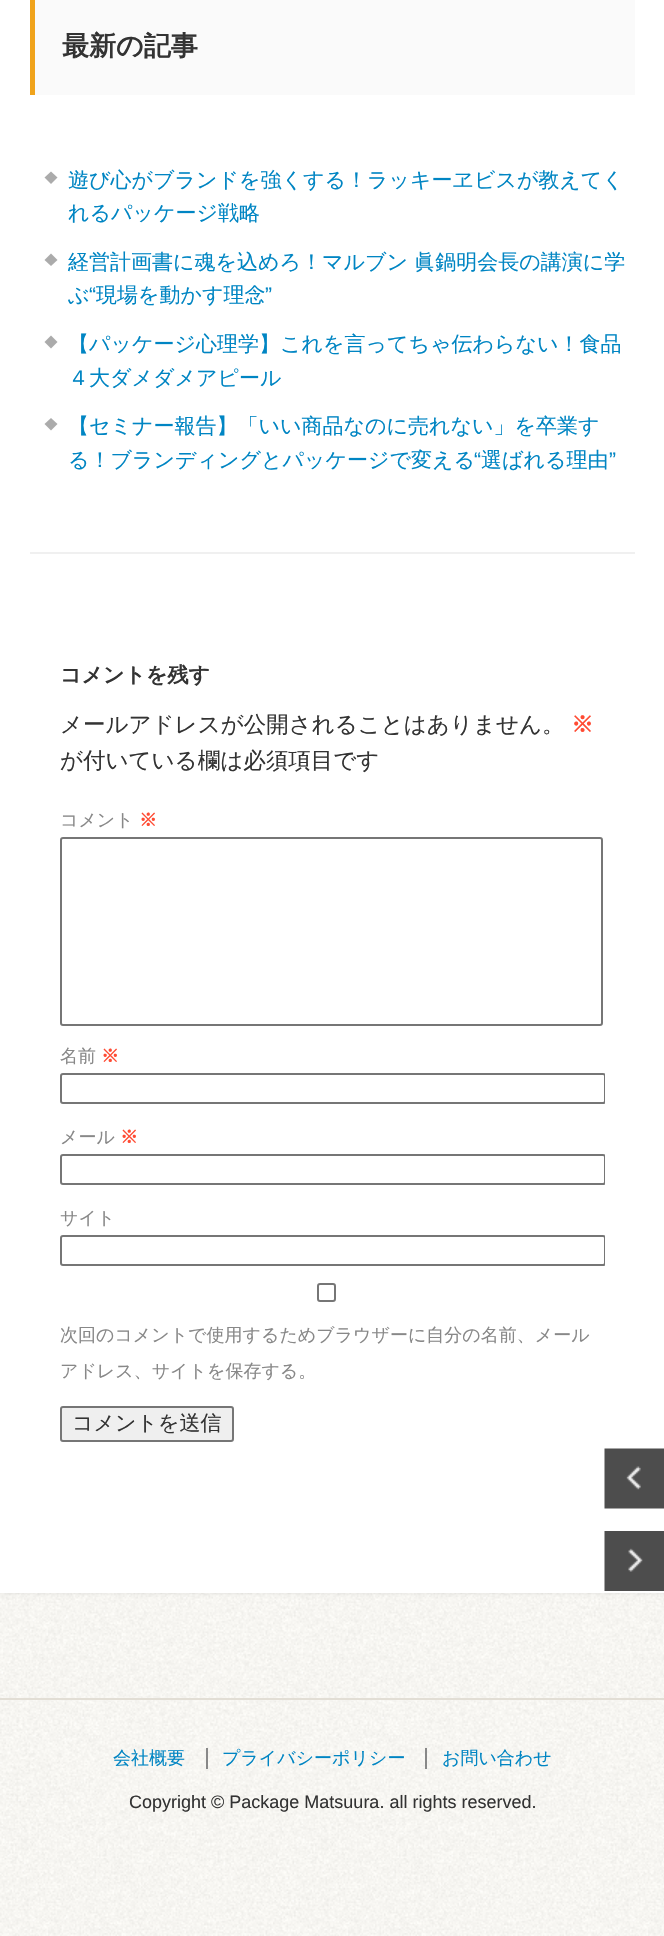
#include "include/core/SkBlurTypes.h"
#include "include/core/SkCanvas.h"
#include "include/core/SkData.h"
#include "include/core/SkFont.h"
#include "include/core/SkFontMgr.h"
#include "include/core/SkImage.h"
#include "include/core/SkMaskFilter.h"
#include "include/core/SkPaint.h"
#include "include/core/SkPathBuilder.h"
#include "include/core/SkTextBlob.h"
#include "include/effects/SkDashPathEffect.h"
#include "include/effects/SkGradientShader.h"
#include "include/utils/SkParsePath.h"

extern sk_sp<SkFontMgr> fontMgr;

void draw(SkCanvas* canvas) {
    SkPaint p;
    p.setAntiAlias(true);
    auto font = [&](const char* family, int weight, float size, bool italic = false) {
        SkFontStyle style(weight, SkFontStyle::kNormal_Width,
            italic ? SkFontStyle::kItalic_Slant : SkFontStyle::kUpright_Slant);
        SkFont result(fontMgr->matchFamilyStyle(family, style), size);
        result.setSubpixel(true);
        return result;
    };
    auto drawPhoto = [&](const char* path, float l, float t, float r, float b) {
        auto image = SkImages::DeferredFromEncodedData(SkData::MakeFromFileName(path));
        canvas->drawImageRect(image, SkRect::MakeLTRB(l, t, r, b), SkSamplingOptions());
    };
    canvas->clear(0xFFFFFFFF);
    drawPhoto("media/1.png", 0, 1593, 664, 1936);
    p.setColor(0x1A000000);
    p.setMaskFilter(SkMaskFilter::MakeBlur(kNormal_SkBlurStyle, 2));
    canvas->drawRect(SkRect::MakeLTRB(0, -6, 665, 1593), p);
    p.setMaskFilter(nullptr);
    {
        const struct { float l, t, r, b; SkColor color; } items[] = {
            {0, 0, 664, 1593, 0xFFFFFFFF},
            {35, 0, 635, 95, 0xFFFAFAFA},
            {30, 0, 35, 95, 0xFFF0A31B},
        };
        for (auto [l, t, r, b, color] : items) {
            p.setColor(color);
            canvas->drawRect(SkRect::MakeLTRB(l, t, r, b), p);
        }
    }
    auto font1 = font("WenQuanYi Zen Hei", 700, 27);
    p.setColor(0xFF333333);
    canvas->drawString("最新の記事", 62, 55, font1, p);
    p.setColor(0xFFABABAB);
    canvas->drawPath(SkPathBuilder().moveTo(44.5f, 177.5f).lineTo(51, 171.5f).lineTo(57.5f, 177.5f).lineTo(51, 184).close().detach(), p);
    auto font2 = font("WenQuanYi Zen Hei", 500, 21);
    p.setColor(0xFF0085C3);
    canvas->drawString("遊び心がブランドを強くする！ラッキーヱビスが教えてく", 68, 187, font2, p);
    canvas->drawString("れるパッケージ戦略", 68, 220, font2, p);
    p.setColor(0xFFABABAB);
    canvas->drawPath(SkPathBuilder().moveTo(44.5f, 260).lineTo(51, 253.5f).lineTo(57.5f, 260).lineTo(51, 266).close().detach(), p);
    p.setColor(0xFF0085C3);
    canvas->drawString("経営計画書に魂を込めろ！マルブン 眞鍋明会長の講演に学", 68, 269, font2, p);
    canvas->drawString("ぶ", 68, 302, font2, p);
    auto font3 = font("Liberation Sans", 400, 21);
    canvas->drawString("“", 89, 302, font3, p);
    canvas->drawString("現場を動かす理念", 96, 302, font2, p);
    canvas->drawString("”", 265, 302, font3, p);
    p.setColor(0xFFABABAB);
    canvas->drawPath(SkPathBuilder().moveTo(44.5f, 342).lineTo(51, 335.5f).lineTo(57.5f, 342).lineTo(51, 348.5f).close().detach(), p);
    p.setColor(0xFF0085C3);
    canvas->drawString("【パッケージ心理学】これを言ってちゃ伝わらない！食品", 68, 351, font2, p);
    canvas->drawString("４大ダメダメアピール", 68, 385, font2, p);
    p.setColor(0xFFABABAB);
    canvas->drawPath(SkPathBuilder().moveTo(44.5f, 424).lineTo(51, 418).lineTo(57.5f, 424).lineTo(51, 430.5f).close().detach(), p);
    p.setColor(0xFF0085C3);
    canvas->drawString("【セミナー報告】「いい商品なのに売れない」を卒業す", 68, 433, font2, p);
    canvas->drawString("る！ブランディングとパッケージで変える", 68, 467, font2, p);
    canvas->drawString("“", 474, 467, font3, p);
    canvas->drawString("選ばれる理由", 481, 467, font2, p);
    canvas->drawString("”", 609, 467, font3, p);
    p.setColor(0xFFF0F0F0);
    canvas->drawRect(SkRect::MakeLTRB(30, 552, 635, 554), p);
    auto font4 = font("WenQuanYi Zen Hei", 700, 21);
    p.setColor(0xFF333333);
    canvas->drawString("コメントを残す", 60, 682, font4, p);
    auto font5 = font("WenQuanYi Zen Hei", 500, 22.5f);
    canvas->drawString("メールアドレスが公開されることはありません。", 60, 732, font5, p);
    auto font6 = font("WenQuanYi Zen Hei", 700, 22.5f);
    p.setColor(0xFFFF4B33);
    canvas->drawString("※", 571, 732, font6, p);
    p.setColor(0xFF333333);
    canvas->drawString("が付いている欄は必須項目です", 60, 768, font5, p);
    auto font7 = font("WenQuanYi Zen Hei", 500, 18);
    p.setColor(0xFF888888);
    canvas->drawString("コメント", 60, 826, font7, p);
    auto font8 = font("WenQuanYi Zen Hei", 700, 18);
    p.setColor(0xFFFF4B33);
    canvas->drawString("※", 139, 826, font8, p);
    p.setStyle(SkPaint::kStroke_Style);
    p.setStrokeWidth(2);
    p.setColor(0xFF767676);
    canvas->drawRoundRect(SkRect::MakeLTRB(61, 838, 602, 1025), 2, 2, p);
    p.setStyle(SkPaint::kFill_Style);
    p.setColor(0xFF888888);
    canvas->drawString("名前", 60, 1062, font7, p);
    p.setColor(0xFFFF4B33);
    canvas->drawString("※", 101, 1062, font8, p);
    canvas->save();
    canvas->clipRect(SkRect::MakeLTRB(60, 614, 605, 1473));
    p.setStyle(SkPaint::kStroke_Style);
    p.setColor(0xFF767676);
    canvas->drawRoundRect(SkRect::MakeLTRB(61, 1074, 605, 1103), 2, 2, p);
    canvas->restore();
    p.setStyle(SkPaint::kFill_Style);
    p.setColor(0xFF888888);
    canvas->drawString("メール", 60, 1143, font7, p);
    p.setColor(0xFFFF4B33);
    canvas->drawString("※", 120, 1143, font8, p);
    canvas->save();
    canvas->clipRect(SkRect::MakeLTRB(60, 614, 605, 1473));
    p.setStyle(SkPaint::kStroke_Style);
    p.setColor(0xFF767676);
    canvas->drawRoundRect(SkRect::MakeLTRB(61, 1155, 605, 1184), 2, 2, p);
    canvas->restore();
    p.setStyle(SkPaint::kFill_Style);
    p.setColor(0xFF888888);
    canvas->drawString("サイト", 60, 1224, font7, p);
    canvas->save();
    canvas->clipRect(SkRect::MakeLTRB(60, 614, 605, 1473));
    p.setStyle(SkPaint::kStroke_Style);
    p.setColor(0xFF767676);
    canvas->drawRoundRect(SkRect::MakeLTRB(61, 1236, 605, 1265), 2, 2, p);
    canvas->restore();
    canvas->drawRoundRect(SkRect::MakeLTRB(318, 1284, 335, 1301), 2, 2, p);
    p.setStyle(SkPaint::kFill_Style);
    p.setColor(0xFF888888);
    canvas->drawString("次回のコメントで使用するためブラウザーに自分の名前、メール", 60, 1341, font7, p);
    canvas->drawString("アドレス、サイトを保存する。", 60, 1377, font7, p);
    p.setColor(0xFFEFEFEF);
    canvas->drawRoundRect(SkRect::MakeLTRB(61, 1407, 233, 1441), 2, 2, p);
    p.setStyle(SkPaint::kStroke_Style);
    p.setColor(0xFF767676);
    canvas->drawRoundRect(SkRect::MakeLTRB(61, 1407, 233, 1441), 2, 2, p);
    p.setStyle(SkPaint::kFill_Style);
    p.setColor(0xFF333333);
    canvas->drawString("コメントを送信", 72, 1430, font2, p);
    drawPhoto("media/2.png", 604, 1448, 664, 1509);
    drawPhoto("media/3.png", 604, 1531, 664, 1591);
    p.setColor(0xFFE2DED5);
    canvas->drawRect(SkRect::MakeLTRB(0, 1698, 664, 1700), p);
    p.setColor(0xFF0085C3);
    canvas->drawString("会社概要", 113, 1764, font7, p);
    canvas->drawString("プライバシーポリシー", 222, 1764, font7, p);
    p.setColor(0xFF888888);
    canvas->drawRect(SkRect::MakeLTRB(206, 1748, 208, 1769), p);
    p.setColor(0xFF0085C3);
    canvas->drawString("お問い合わせ", 442, 1764, font7, p);
    p.setColor(0xFF888888);
    canvas->drawRect(SkRect::MakeLTRB(425, 1748, 427, 1769), p);
    auto font9 = font("Liberation Sans", 400, 18);
    p.setColor(0xFF333333);
    canvas->drawString("Copyright © Package Matsuura. all rights reserved.", 129, 1808, font9, p);
}
